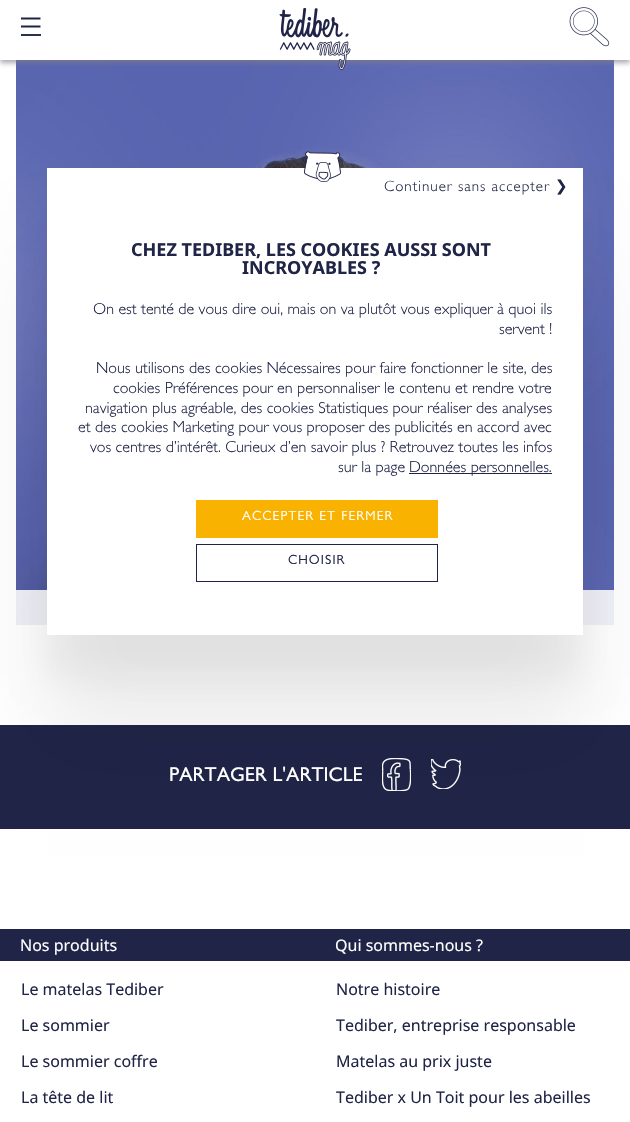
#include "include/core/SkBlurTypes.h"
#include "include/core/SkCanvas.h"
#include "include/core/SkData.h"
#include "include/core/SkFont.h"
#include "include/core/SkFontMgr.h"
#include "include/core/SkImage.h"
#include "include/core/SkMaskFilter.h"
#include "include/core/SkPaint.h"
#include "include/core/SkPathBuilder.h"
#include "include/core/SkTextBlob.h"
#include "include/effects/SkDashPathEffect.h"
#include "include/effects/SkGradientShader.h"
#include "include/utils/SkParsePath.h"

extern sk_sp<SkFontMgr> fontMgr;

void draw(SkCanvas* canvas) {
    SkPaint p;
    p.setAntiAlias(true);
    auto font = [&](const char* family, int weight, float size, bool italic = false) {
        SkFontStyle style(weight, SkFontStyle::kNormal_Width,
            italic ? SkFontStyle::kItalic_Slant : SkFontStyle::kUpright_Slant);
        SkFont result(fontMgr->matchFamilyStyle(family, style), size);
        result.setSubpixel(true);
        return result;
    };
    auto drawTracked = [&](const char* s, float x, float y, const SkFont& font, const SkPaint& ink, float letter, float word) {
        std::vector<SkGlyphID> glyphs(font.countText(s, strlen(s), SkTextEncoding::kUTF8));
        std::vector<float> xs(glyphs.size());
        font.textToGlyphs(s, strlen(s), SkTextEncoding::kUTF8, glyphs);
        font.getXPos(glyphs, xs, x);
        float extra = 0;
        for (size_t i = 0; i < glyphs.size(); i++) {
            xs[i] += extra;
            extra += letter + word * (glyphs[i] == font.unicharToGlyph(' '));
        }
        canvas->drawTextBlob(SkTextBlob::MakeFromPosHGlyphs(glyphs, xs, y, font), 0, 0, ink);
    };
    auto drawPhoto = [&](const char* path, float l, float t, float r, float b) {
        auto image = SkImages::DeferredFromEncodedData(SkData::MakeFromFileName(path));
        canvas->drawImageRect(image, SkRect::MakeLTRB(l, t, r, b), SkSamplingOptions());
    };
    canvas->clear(0xFFFFFFFF);
    drawPhoto("media/4.png", 16, 60, 614, 625);
    p.setColor(0xE6FFFFFF);
    canvas->drawRect(SkRect::MakeLTRB(16, 590, 614, 625), p);
    p.setColor(0xFF202447);
    canvas->drawRect(SkRect::MakeLTRB(0, 725, 630, 829), p);
    drawPhoto("media/5.png", 382, 758, 411, 791);
    drawPhoto("media/6.png", 431, 759, 461, 789);
    p.setColor(0x12000000);
    p.setMaskFilter(SkMaskFilter::MakeBlur(kNormal_SkBlurStyle, 40));
    canvas->drawRect(SkRect::MakeLTRB(47, 268, 583, 735), p);
    p.setMaskFilter(nullptr);
    p.setColor(0x0D000000);
    p.setMaskFilter(SkMaskFilter::MakeBlur(kNormal_SkBlurStyle, 16.5f));
    canvas->drawRect(SkRect::MakeLTRB(47, 210, 583, 677), p);
    p.setMaskFilter(nullptr);
    p.setColor(0xFFFFFFFF);
    canvas->drawRect(SkRect::MakeLTRB(47, 168, 583, 635), p);
    auto font1 = font("Gill Sans", 300, 15);
    p.setColor(0xFF202447);
    drawTracked("Continuer sans accepter", 384, 191, font1, p, 1, 0);
    auto font2 = font("DejaVu Sans", 400, 15);
    drawTracked("❯", 555, 191, font2, p, 1, 0);
    drawPhoto("media/1.png", 304, 151, 341, 182);
    auto font3 = font("Noto Sans", 700, 18);
    canvas->drawString("CHEZ TEDIBER, LES COOKIES AUSSI SONT", 131, 256, font3, p);
    canvas->drawString("INCROYABLES ?", 242, 274, font3, p);
    auto font4 = font("Gill Sans", 300, 16);
    {
        const struct { const char* s; float x, y; } items[] = {
            {"On est tenté de vous dire oui, mais on va plutôt vous expliquer à quoi ils", 93, 314},
            {"servent !", 499, 334},
            {"Nous utilisons des cookies Nécessaires pour faire fonctionner le site, des", 96, 373},
            {"cookies Préférences pour en personnaliser le contenu et rendre votre", 113, 393},
            {"navigation plus agréable, des cookies Statistiques pour réaliser des analyses", 85, 413},
            {"et des cookies Marketing pour vous proposer des publicités en accord avec", 78, 432},
            {"vos centres d’intérêt. Curieux d’en savoir plus ? Retrouvez toutes les infos", 90, 452},
            {"sur la page", 338, 472},
        };
        for (auto [s, x, y] : items) {
            canvas->drawString(s, x, y, font4, p);
        }
    }
    canvas->drawRect(SkRect::MakeLTRB(409, 473, 552, 474), p);
    canvas->drawString("Données personnelles.", 409, 472, font4, p);
    p.setColor(0xFFFAB200);
    canvas->drawRect(SkRect::MakeLTRB(196, 500, 438, 538), p);
    auto font5 = font("Gill Sans", 700, 12.75f);
    p.setColor(0xFFFFFFFF);
    drawTracked("ACCEPTER ET FERMER", 242, 520, font5, p, 1.6f, 0);
    p.setStyle(SkPaint::kStroke_Style);
    p.setStrokeWidth(1);
    p.setColor(0xFF202447);
    canvas->drawRect(SkRect::MakeLTRB(196.5f, 544.5f, 437.5f, 581.5f), p);
    p.setStyle(SkPaint::kFill_Style);
    drawTracked("CHOISIR", 288, 564, font5, p, 1.5f, 0);
    p.setColor(0xA67F7C89);
    p.setMaskFilter(SkMaskFilter::MakeBlur(kNormal_SkBlurStyle, 2.5f));
    canvas->drawRect(SkRect::MakeLTRB(0, 3, 630, 63), p);
    p.setMaskFilter(nullptr);
    p.setColor(0xFFFFFFFF);
    canvas->drawRect(SkRect::MakeLTRB(0, 0, 630, 60), p);
    p.setStyle(SkPaint::kStroke_Style);
    p.setStrokeWidth(1.9f);
    p.setColor(0xFF202447);
    canvas->drawPath(SkPathBuilder().moveTo(21, 18.5f).lineTo(40.5f, 18.5f).moveTo(21, 26.5f).lineTo(40.5f, 26.5f).detach(), p);
    p.setStyle(SkPaint::kFill_Style);
    p.setColor(0xFF2B2F50);
    canvas->drawRect(SkRect::MakeLTRB(21, 34, 41, 36), p);
    drawPhoto("media/2.png", 279, 8, 351, 70);
    drawPhoto("media/3.png", 569, 7, 610, 47);
    auto font6 = font("Gill Sans", 400, 20);
    p.setColor(0xFFFFFFFF);
    canvas->drawString("PARTAGER L'ARTICLE", 169, 781, font6, p);
    p.setColor(0xFF202447);
    canvas->drawRect(SkRect::MakeLTRB(0, 929, 630, 961), p);
    auto font7 = font("Noto Sans", 400, 16);
    p.setColor(0xFFFFFFFF);
    canvas->drawString("Nos produits", 20, 951, font7, p);
    p.setColor(0xFF202447);
    {
        const struct { const char* s; float x, y; } items[] = {
            {"Le matelas Tediber", 21, 995},
            {"Le sommier", 21, 1031},
            {"Le sommier coffre", 21, 1067},
            {"La tête de lit", 21, 1103},
        };
        for (auto [s, x, y] : items) {
            canvas->drawString(s, x, y, font7, p);
        }
    }
    p.setColor(0xFFFFFFFF);
    canvas->drawString("Qui sommes-nous ?", 335, 951, font7, p);
    p.setColor(0xFF202447);
    {
        const struct { const char* s; float x, y; } items[] = {
            {"Notre histoire", 336, 995},
            {"Tediber, entreprise responsable", 336, 1031},
            {"Matelas au prix juste", 336, 1067},
            {"Tediber x Un Toit pour les abeilles", 336, 1103},
        };
        for (auto [s, x, y] : items) {
            canvas->drawString(s, x, y, font7, p);
        }
    }
}
